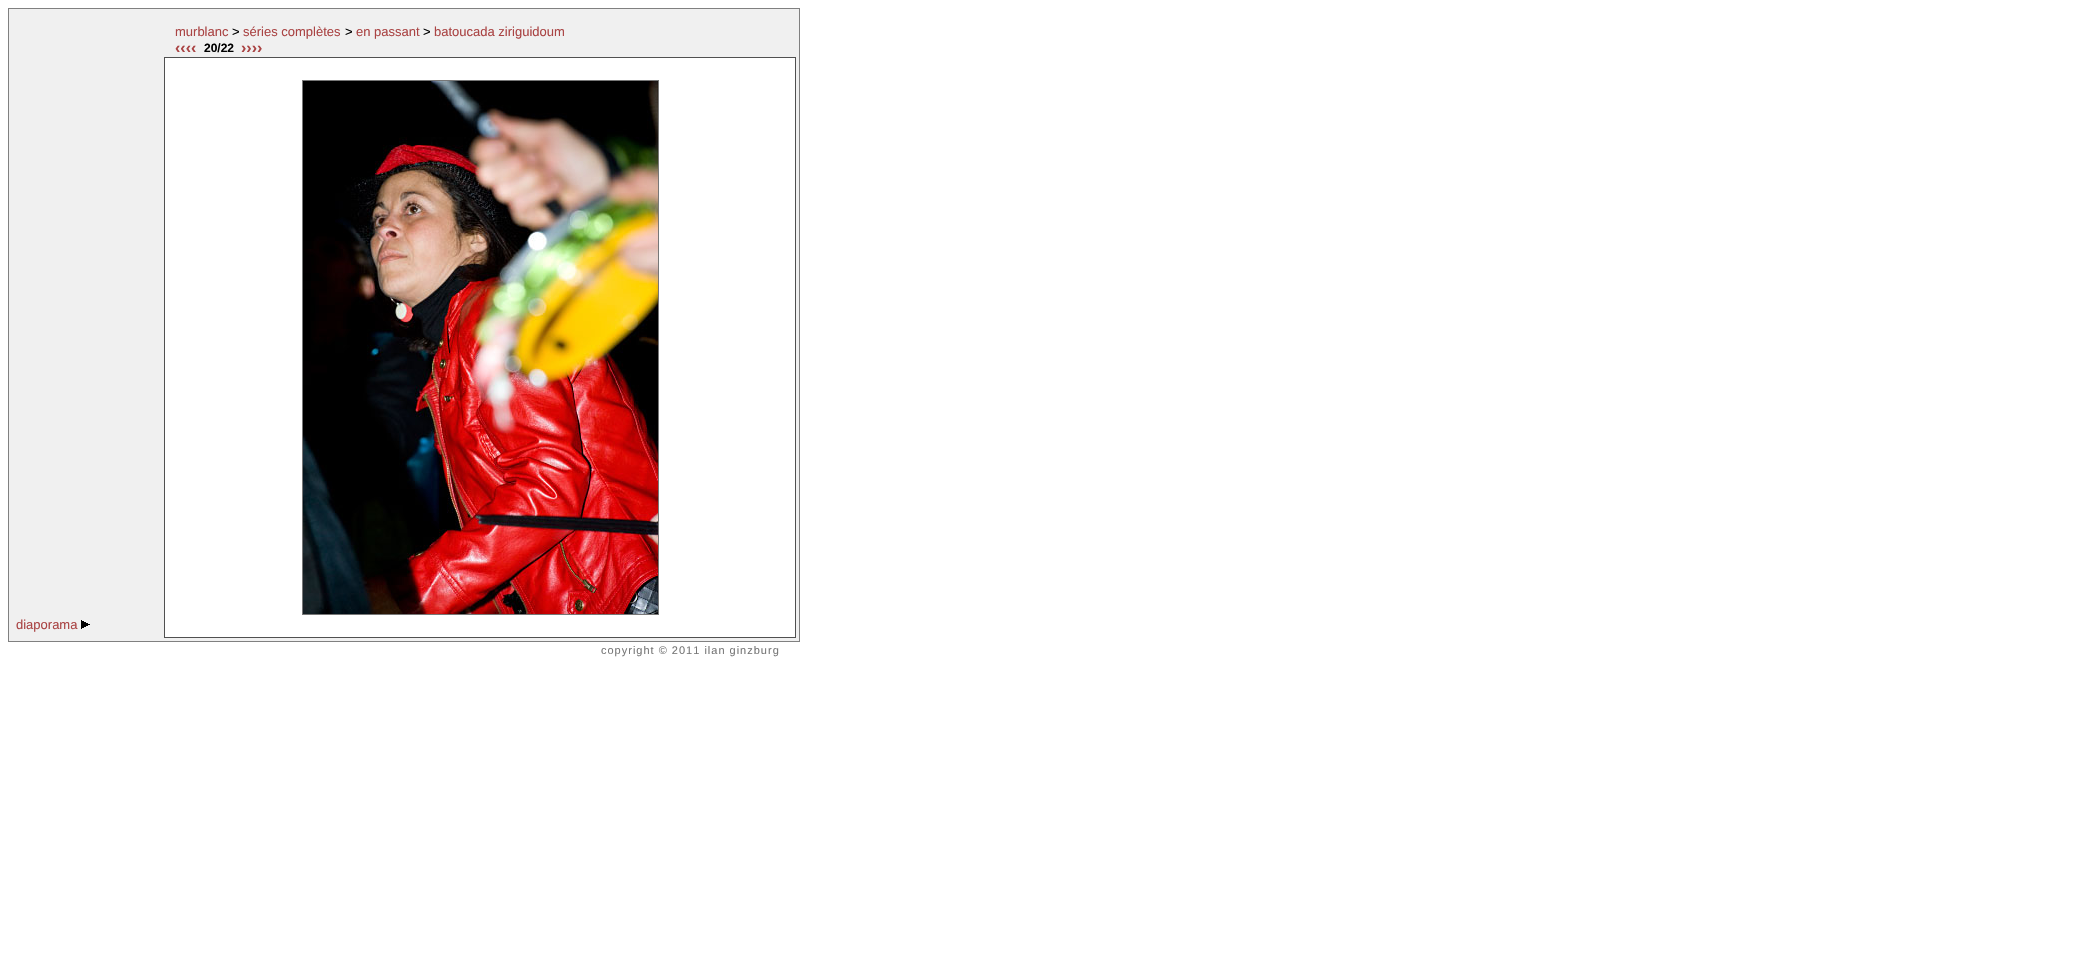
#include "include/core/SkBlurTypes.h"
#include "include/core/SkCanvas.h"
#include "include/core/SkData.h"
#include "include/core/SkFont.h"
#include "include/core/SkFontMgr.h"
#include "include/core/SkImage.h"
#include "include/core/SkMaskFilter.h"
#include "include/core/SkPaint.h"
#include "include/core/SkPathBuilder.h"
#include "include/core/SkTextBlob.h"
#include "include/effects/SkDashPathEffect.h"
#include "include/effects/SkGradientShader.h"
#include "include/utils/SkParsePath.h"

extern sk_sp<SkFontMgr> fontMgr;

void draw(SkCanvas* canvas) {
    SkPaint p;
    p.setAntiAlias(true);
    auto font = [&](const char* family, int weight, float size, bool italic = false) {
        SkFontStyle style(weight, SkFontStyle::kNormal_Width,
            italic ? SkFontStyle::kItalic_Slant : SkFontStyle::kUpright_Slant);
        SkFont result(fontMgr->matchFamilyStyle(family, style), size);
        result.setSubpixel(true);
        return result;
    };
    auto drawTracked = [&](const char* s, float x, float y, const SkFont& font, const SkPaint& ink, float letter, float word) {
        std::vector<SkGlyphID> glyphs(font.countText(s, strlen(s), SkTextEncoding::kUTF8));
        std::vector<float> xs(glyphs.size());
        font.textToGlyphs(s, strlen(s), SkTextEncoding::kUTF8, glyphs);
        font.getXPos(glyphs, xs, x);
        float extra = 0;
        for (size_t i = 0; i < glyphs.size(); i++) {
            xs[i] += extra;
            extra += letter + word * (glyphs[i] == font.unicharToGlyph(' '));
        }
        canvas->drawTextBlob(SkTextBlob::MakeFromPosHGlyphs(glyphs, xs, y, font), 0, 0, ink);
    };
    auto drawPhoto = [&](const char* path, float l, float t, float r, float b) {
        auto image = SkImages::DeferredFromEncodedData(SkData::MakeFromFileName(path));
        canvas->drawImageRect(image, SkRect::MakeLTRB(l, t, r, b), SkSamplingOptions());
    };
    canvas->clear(0xFFFFFFFF);
    {
        const struct { float l, t, r, b; SkColor color; } items[] = {
            {9, 9, 799, 641, 0xFFF0F0F0},
            {8, 8, 800, 9, 0xFF808080},
            {799, 8, 800, 642, 0xFF808080},
            {8, 641, 800, 642, 0xFF808080},
            {8, 8, 9, 642, 0xFF808080},
        };
        for (auto [l, t, r, b, color] : items) {
            p.setColor(color);
            canvas->drawRect(SkRect::MakeLTRB(l, t, r, b), p);
        }
    }
    auto font1 = font("Liberation Sans", 400, 13);
    p.setColor(0xFFAA4444);
    canvas->drawString("murblanc", 175, 36, font1, p);
    p.setColor(0xFF000000);
    canvas->drawString(">", 232, 36, font1, p);
    p.setColor(0xFFAA4444);
    canvas->drawString("séries complètes", 243, 36, font1, p);
    p.setColor(0xFF000000);
    canvas->drawString(">", 345, 36, font1, p);
    p.setColor(0xFFAA4444);
    canvas->drawString("en passant", 356, 36, font1, p);
    p.setColor(0xFF000000);
    canvas->drawString(">", 423, 36, font1, p);
    p.setColor(0xFFAA4444);
    canvas->drawString("batoucada ziriguidoum", 434, 36, font1, p);
    auto font2 = font("Liberation Sans", 700, 16);
    canvas->drawString("‹‹‹‹", 175, 53, font2, p);
    auto font3 = font("Liberation Sans", 700, 12);
    p.setColor(0xFF000000);
    canvas->drawString("20/22", 204, 52, font3, p);
    p.setColor(0xFFAA4444);
    canvas->drawString("››››", 241, 53, font2, p);
    p.setColor(0xFFFFFFFF);
    canvas->drawRect(SkRect::MakeLTRB(164.5f, 57.5f, 795.5f, 637.5f), p);
    p.setStyle(SkPaint::kStroke_Style);
    p.setStrokeWidth(1);
    p.setColor(0xFF505050);
    canvas->drawRect(SkRect::MakeLTRB(164.5f, 57.5f, 795.5f, 637.5f), p);
    p.setColor(0xFF777777);
    canvas->drawRect(SkRect::MakeLTRB(302.5f, 80.5f, 658.5f, 614.5f), p);
    drawPhoto("media/1.png", 303, 81, 658, 614);
    p.setStyle(SkPaint::kFill_Style);
    p.setColor(0xFFAA4444);
    canvas->drawString("diaporama", 16, 629, font1, p);
    drawPhoto("media/2.png", 81, 620, 90, 629);
    auto font4 = font("Liberation Sans", 400, 11);
    p.setColor(0xFF777777);
    drawTracked("copyright © 2011 ilan ginzburg", 601, 654, font4, p, 1, 0);
}
